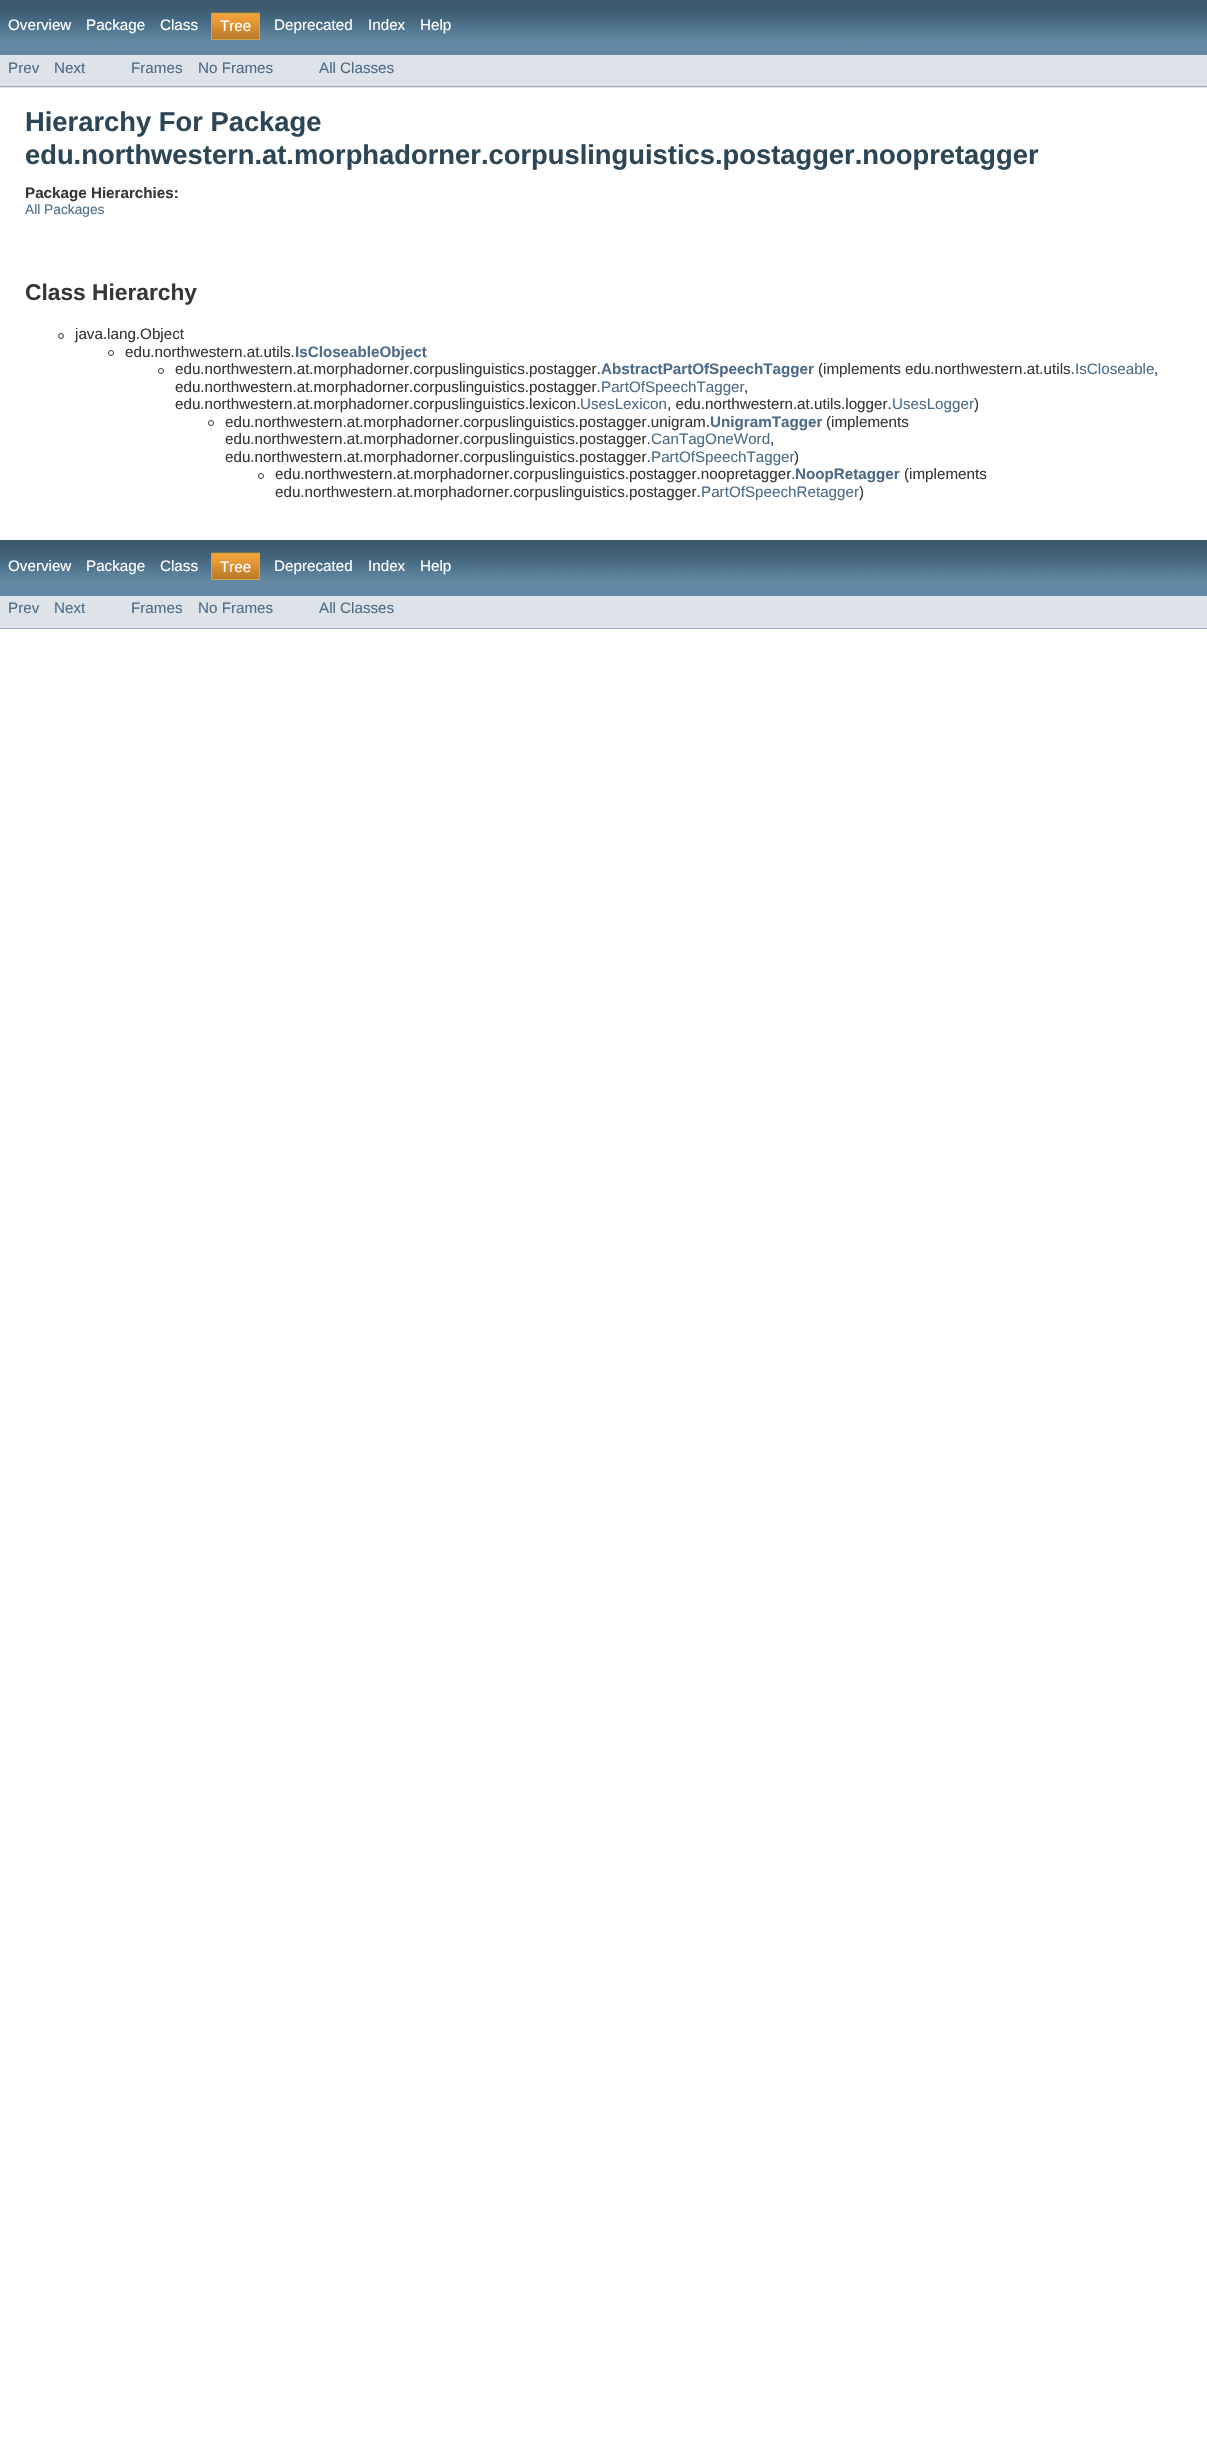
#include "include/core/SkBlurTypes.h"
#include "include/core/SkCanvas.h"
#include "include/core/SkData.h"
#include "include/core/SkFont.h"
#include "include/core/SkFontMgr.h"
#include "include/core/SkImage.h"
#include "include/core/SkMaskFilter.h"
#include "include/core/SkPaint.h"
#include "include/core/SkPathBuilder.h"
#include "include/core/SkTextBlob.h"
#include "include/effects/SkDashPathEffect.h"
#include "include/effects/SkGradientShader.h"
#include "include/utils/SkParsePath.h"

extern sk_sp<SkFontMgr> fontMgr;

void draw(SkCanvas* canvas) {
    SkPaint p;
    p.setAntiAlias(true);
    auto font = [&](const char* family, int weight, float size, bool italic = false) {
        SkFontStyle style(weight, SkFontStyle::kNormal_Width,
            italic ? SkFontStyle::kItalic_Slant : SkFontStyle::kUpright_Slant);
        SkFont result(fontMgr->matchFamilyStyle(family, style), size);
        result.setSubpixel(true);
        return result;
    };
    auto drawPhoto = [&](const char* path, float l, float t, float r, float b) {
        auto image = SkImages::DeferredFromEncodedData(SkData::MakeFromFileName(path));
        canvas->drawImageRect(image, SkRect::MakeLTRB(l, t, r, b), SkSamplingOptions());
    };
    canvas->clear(0xFFFFFFFF);
    drawPhoto("media/1.png", 0, 0, 1207, 55);
    auto font1 = font("Liberation Sans", 400, 15.2f);
    p.setColor(0xFFFFFFFF);
    {
        const struct { const char* s; float x, y; } items[] = {
            {"Overview", 8, 30},
            {"Package", 86, 30},
            {"Class", 160, 30},
        };
        for (auto [s, x, y] : items) {
            canvas->drawString(s, x, y, font1, p);
        }
    }
    drawPhoto("media/2.png", 211, 12, 260, 39);
    p.setStyle(SkPaint::kStroke_Style);
    p.setStrokeWidth(1);
    p.setColor(0xFFC9AA44);
    canvas->drawRect(SkRect::MakeLTRB(211.5f, 13.5f, 259.5f, 39.5f), p);
    p.setStyle(SkPaint::kFill_Style);
    p.setColor(0xFFFFFFFF);
    {
        const struct { const char* s; float x, y; } items[] = {
            {"Tree", 220, 31},
            {"Deprecated", 274, 30},
            {"Index", 368, 30},
            {"Help", 420, 30},
        };
        for (auto [s, x, y] : items) {
            canvas->drawString(s, x, y, font1, p);
        }
    }
    p.setColor(0xFFDEE3E9);
    canvas->drawRect(SkRect::MakeLTRB(0, 55, 1207, 88), p);
    p.setColor(0xFF9EADC0);
    canvas->drawRect(SkRect::MakeLTRB(0, 86, 1207, 87), p);
    p.setColor(0xFF4C6B87);
    {
        const struct { const char* s; float x, y; } items[] = {
            {"Prev", 8, 73},
            {"Next", 54, 73},
            {"Frames", 131, 73},
            {"No Frames", 198, 73},
            {"All Classes", 319, 73},
        };
        for (auto [s, x, y] : items) {
            canvas->drawString(s, x, y, font1, p);
        }
    }
    auto font2 = font("Liberation Sans", 700, 27.35f);
    p.setColor(0xFF2C4557);
    canvas->drawString("Hierarchy For Package", 25, 131, font2, p);
    canvas->drawString("edu.northwestern.at.morphadorner.corpuslinguistics.postagger.noopretagger", 25, 164, font2, p);
    auto font3 = font("Liberation Sans", 700, 15.2f);
    p.setColor(0xFF353833);
    canvas->drawString("Package Hierarchies:", 25, 198, font3, p);
    auto font4 = font("Liberation Sans", 400, 13.75f);
    p.setColor(0xFF4C6B87);
    canvas->drawString("All Packages", 25, 214, font4, p);
    auto font5 = font("Liberation Sans", 700, 22.75f);
    p.setColor(0xFF353833);
    canvas->drawString("Class Hierarchy", 25, 300, font5, p);
    p.setStyle(SkPaint::kStroke_Style);
    canvas->drawCircle(61, 336, 2.5f, p);
    p.setStyle(SkPaint::kFill_Style);
    canvas->drawString("java.lang.Object", 75, 339, font1, p);
    p.setStyle(SkPaint::kStroke_Style);
    canvas->drawCircle(111, 353, 2.5f, p);
    p.setStyle(SkPaint::kFill_Style);
    canvas->drawString("edu.northwestern.at.utils.", 125, 357, font1, p);
    p.setColor(0xFF4C6B87);
    canvas->drawString("IsCloseableObject", 295, 357, font3, p);
    p.setStyle(SkPaint::kStroke_Style);
    p.setColor(0xFF353833);
    canvas->drawCircle(161, 371, 2.5f, p);
    p.setStyle(SkPaint::kFill_Style);
    canvas->drawString("edu.northwestern.at.morphadorner.corpuslinguistics.postagger.", 175, 374, font1, p);
    p.setColor(0xFF4C6B87);
    canvas->drawString("AbstractPartOfSpeechTagger", 601, 374, font3, p);
    p.setColor(0xFF353833);
    canvas->drawString("(implements edu.northwestern.at.utils.", 818, 374, font1, p);
    p.setColor(0xFF4C6B87);
    canvas->drawString("IsCloseable", 1075, 374, font1, p);
    p.setColor(0xFF353833);
    canvas->drawString(",", 1154, 374, font1, p);
    canvas->drawString("edu.northwestern.at.morphadorner.corpuslinguistics.postagger.", 175, 392, font1, p);
    p.setColor(0xFF4C6B87);
    canvas->drawString("PartOfSpeechTagger", 601, 392, font1, p);
    p.setColor(0xFF353833);
    canvas->drawString(",", 744, 392, font1, p);
    canvas->drawString("edu.northwestern.at.morphadorner.corpuslinguistics.lexicon.", 175, 409, font1, p);
    p.setColor(0xFF4C6B87);
    canvas->drawString("UsesLexicon", 580, 409, font1, p);
    p.setColor(0xFF353833);
    canvas->drawString(", edu.northwestern.at.utils.logger.", 667, 409, font1, p);
    p.setColor(0xFF4C6B87);
    canvas->drawString("UsesLogger", 892, 409, font1, p);
    p.setColor(0xFF353833);
    canvas->drawString(")", 974, 409, font1, p);
    p.setStyle(SkPaint::kStroke_Style);
    canvas->drawCircle(211, 423, 2.5f, p);
    p.setStyle(SkPaint::kFill_Style);
    canvas->drawString("edu.northwestern.at.morphadorner.corpuslinguistics.postagger.unigram.", 225, 427, font1, p);
    p.setColor(0xFF4C6B87);
    canvas->drawString("UnigramTagger", 710, 427, font3, p);
    p.setColor(0xFF353833);
    canvas->drawString("(implements", 826, 427, font1, p);
    canvas->drawString("edu.northwestern.at.morphadorner.corpuslinguistics.postagger.", 225, 444, font1, p);
    p.setColor(0xFF4C6B87);
    canvas->drawString("CanTagOneWord", 651, 444, font1, p);
    p.setColor(0xFF353833);
    canvas->drawString(",", 770, 444, font1, p);
    canvas->drawString("edu.northwestern.at.morphadorner.corpuslinguistics.postagger.", 225, 462, font1, p);
    p.setColor(0xFF4C6B87);
    canvas->drawString("PartOfSpeechTagger", 651, 462, font1, p);
    p.setColor(0xFF353833);
    canvas->drawString(")", 794, 462, font1, p);
    p.setStyle(SkPaint::kStroke_Style);
    canvas->drawCircle(261, 476, 2.5f, p);
    p.setStyle(SkPaint::kFill_Style);
    canvas->drawString("edu.northwestern.at.morphadorner.corpuslinguistics.postagger.noopretagger.", 275, 479, font1, p);
    p.setColor(0xFF4C6B87);
    canvas->drawString("NoopRetagger", 795, 479, font3, p);
    p.setColor(0xFF353833);
    canvas->drawString("(implements", 904, 479, font1, p);
    canvas->drawString("edu.northwestern.at.morphadorner.corpuslinguistics.postagger.", 275, 497, font1, p);
    p.setColor(0xFF4C6B87);
    canvas->drawString("PartOfSpeechRetagger", 701, 497, font1, p);
    p.setColor(0xFF353833);
    canvas->drawString(")", 859, 497, font1, p);
    drawPhoto("media/3.png", 0, 540, 1207, 596);
    p.setColor(0xFFFFFFFF);
    {
        const struct { const char* s; float x, y; } items[] = {
            {"Overview", 8, 571},
            {"Package", 86, 571},
            {"Class", 160, 571},
        };
        for (auto [s, x, y] : items) {
            canvas->drawString(s, x, y, font1, p);
        }
    }
    drawPhoto("media/2.png", 211, 552, 260, 579);
    p.setStyle(SkPaint::kStroke_Style);
    p.setColor(0xFFC9AA44);
    canvas->drawRect(SkRect::MakeLTRB(211.5f, 553.5f, 259.5f, 579.5f), p);
    p.setStyle(SkPaint::kFill_Style);
    p.setColor(0xFFFFFFFF);
    {
        const struct { const char* s; float x, y; } items[] = {
            {"Tree", 220, 572},
            {"Deprecated", 274, 571},
            {"Index", 368, 571},
            {"Help", 420, 571},
        };
        for (auto [s, x, y] : items) {
            canvas->drawString(s, x, y, font1, p);
        }
    }
    p.setColor(0xFFDEE3E9);
    canvas->drawRect(SkRect::MakeLTRB(0, 596, 1207, 628), p);
    p.setColor(0xFF9EADC0);
    canvas->drawRect(SkRect::MakeLTRB(0, 628, 1207, 629), p);
    p.setColor(0xFF4C6B87);
    {
        const struct { const char* s; float x, y; } items[] = {
            {"Prev", 8, 613},
            {"Next", 54, 613},
            {"Frames", 131, 613},
            {"No Frames", 198, 613},
            {"All Classes", 319, 613},
        };
        for (auto [s, x, y] : items) {
            canvas->drawString(s, x, y, font1, p);
        }
    }
}
